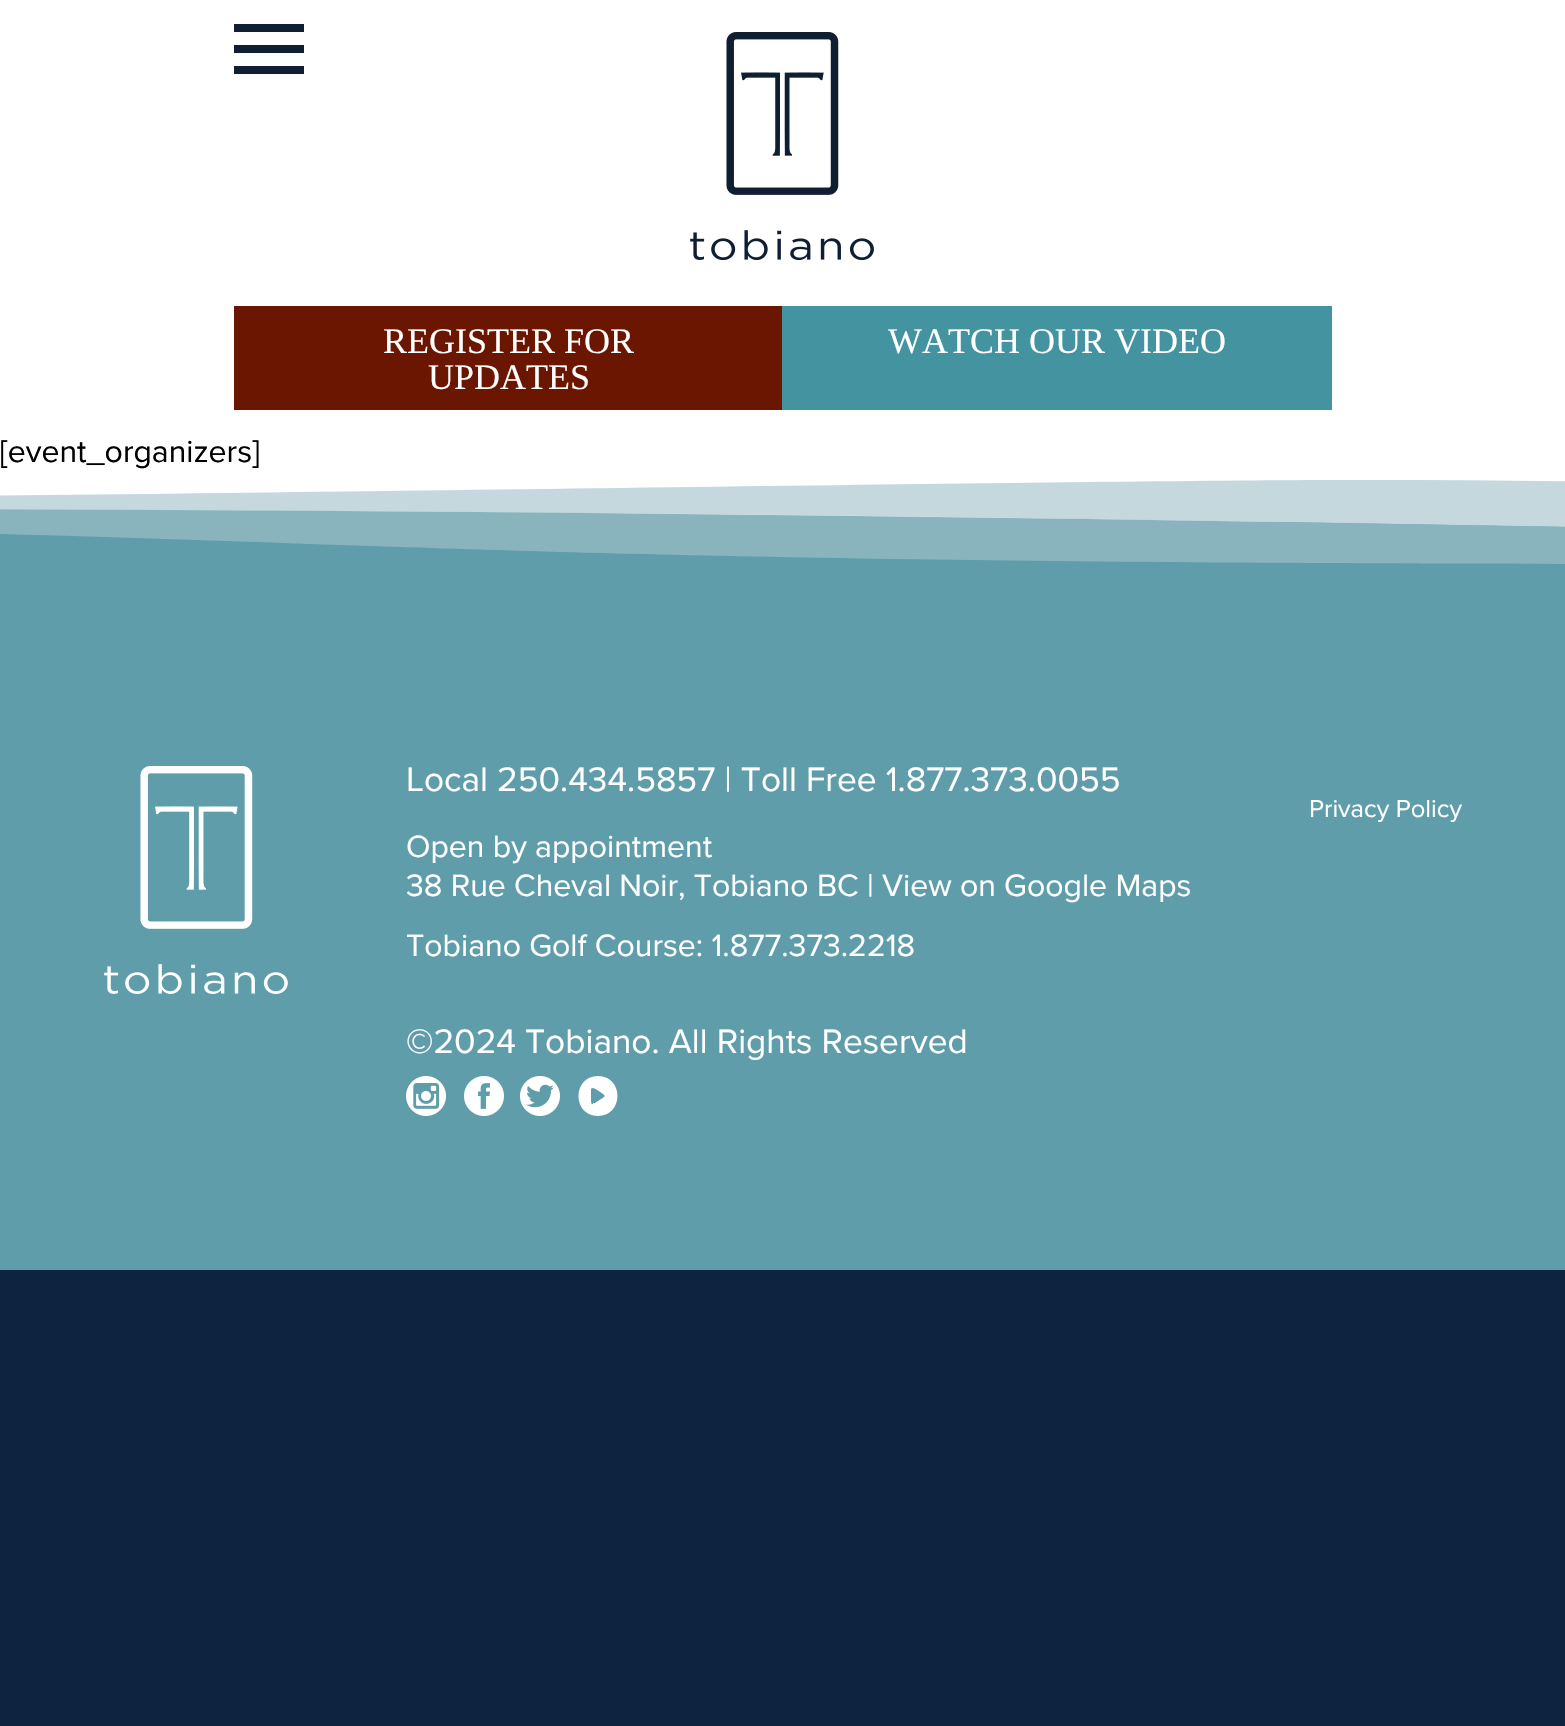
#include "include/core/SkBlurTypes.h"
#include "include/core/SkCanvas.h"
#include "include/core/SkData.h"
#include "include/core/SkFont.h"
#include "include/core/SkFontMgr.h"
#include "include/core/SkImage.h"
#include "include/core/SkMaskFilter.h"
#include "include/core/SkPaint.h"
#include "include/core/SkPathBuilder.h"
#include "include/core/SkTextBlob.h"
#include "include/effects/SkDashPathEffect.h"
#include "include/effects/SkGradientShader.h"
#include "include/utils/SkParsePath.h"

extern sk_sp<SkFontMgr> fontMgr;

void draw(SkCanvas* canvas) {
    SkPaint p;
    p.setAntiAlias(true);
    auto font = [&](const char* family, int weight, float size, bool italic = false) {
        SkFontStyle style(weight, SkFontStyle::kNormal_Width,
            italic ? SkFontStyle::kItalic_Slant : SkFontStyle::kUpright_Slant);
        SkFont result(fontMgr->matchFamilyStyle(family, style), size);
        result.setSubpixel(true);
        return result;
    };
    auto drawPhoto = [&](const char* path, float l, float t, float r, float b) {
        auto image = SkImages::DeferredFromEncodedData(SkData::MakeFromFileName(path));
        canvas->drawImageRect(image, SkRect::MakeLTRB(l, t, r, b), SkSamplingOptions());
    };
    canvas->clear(0xFF0D233F);
    {
        const struct { float l, t, r, b; SkColor color; } items[] = {
            {0, 0, 1565, 522, 0xFFFFFFFF},
            {234, 24, 304, 32, 0xFF0F1E30},
            {234, 45, 304, 53, 0xFF0F1E30},
            {234, 66, 304, 74, 0xFF0F1E30},
        };
        for (auto [l, t, r, b, color] : items) {
            p.setColor(color);
            canvas->drawRect(SkRect::MakeLTRB(l, t, r, b), p);
        }
    }
    drawPhoto("media/1.png", 690, 32, 874, 260);
    p.setColor(0xFF6A1600);
    canvas->drawRect(SkRect::MakeLTRB(234, 306, 782, 410), p);
    auto font1 = font("Liberation Serif", 400, 36);
    p.setColor(0xFFFFFFFF);
    canvas->drawString("REGISTER FOR", 383, 353, font1, p);
    canvas->drawString("UPDATES", 428, 389, font1, p);
    p.setColor(0xFF4493A0);
    canvas->drawRect(SkRect::MakeLTRB(782, 306, 1332, 410), p);
    p.setColor(0xFFFFFFFF);
    canvas->drawString("WATCH OUR VIDEO", 888, 353, font1, p);
    auto font2 = font("Proxima Nova", 400, 32);
    p.setColor(0xFF000000);
    canvas->drawString("[event_organizers]", 0, 462, font2, p);
    p.setColor(0xFF5E9DA9);
    canvas->drawRect(SkRect::MakeLTRB(0, 522, 1565, 1270), p);
    p.setColor(0xFFC4D8DD);
    canvas->drawPath(SkPathBuilder().moveTo(1351, 480).cubicTo(1064, 480, -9, 499, -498, 499).lineTo(-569, 499).lineTo(-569, 510).lineTo(-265, 509).cubicTo(-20, 509, 226, 510, 472, 512).cubicTo(1027, 516, 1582, 527, 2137, 538).lineTo(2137, 493).cubicTo(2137, 493, 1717, 480, 1363, 480).detach(), p);
    p.setColor(0xFF89B4BD);
    canvas->drawPath(SkPathBuilder().moveTo(-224, 509).lineTo(-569, 510).lineTo(-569, 528).lineTo(-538, 528).cubicTo(-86, 528, 110, 537, 372, 546).cubicTo(634, 555, 962, 564, 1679, 564).lineTo(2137, 563).lineTo(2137, 538).cubicTo(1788, 531, 1438, 524, 1088, 519).cubicTo(651, 513, 214, 509, -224, 509).close().detach(), p);
    drawPhoto("media/2.png", 104, 766, 288, 994);
    auto font3 = font("Proxima Nova", 400, 35.2f);
    p.setColor(0xFFFFFFFF);
    canvas->drawString("Local 250.434.5857 | Toll Free 1.877.373.0055", 406, 791, font3, p);
    {
        const struct { const char* s; float x, y; } items[] = {
            {"Open by appointment", 406, 857},
            {"38 Rue Cheval Noir, Tobiano BC | View on Google Maps", 406, 896},
            {"Tobiano Golf Course: 1.877.373.2218", 406, 956},
        };
        for (auto [s, x, y] : items) {
            canvas->drawString(s, x, y, font2, p);
        }
    }
    canvas->drawString("©2024 Tobiano. All Rights Reserved", 406, 1053, font3, p);
    drawPhoto("media/3.png", 406, 1076, 446, 1116);
    drawPhoto("media/4.png", 464, 1076, 504, 1116);
    drawPhoto("media/5.png", 520, 1076, 560, 1116);
    canvas->drawPath(SkPathBuilder().moveTo(598, 1076).cubicTo(572, 1076, 572, 1116, 598, 1116).cubicTo(624, 1116, 624, 1076, 598, 1076).close().moveTo(604, 1097).lineTo(595, 1103).cubicTo(591, 1106, 591, 1103, 591, 1098).lineTo(591, 1089).cubicTo(593, 1086, 598, 1091, 599, 1091).cubicTo(599, 1092, 607, 1095, 604, 1097).close().detach(), p);
    auto font4 = font("Proxima Nova", 400, 25.5f);
    canvas->drawString("Privacy Policy", 1309, 817, font4, p);
}
